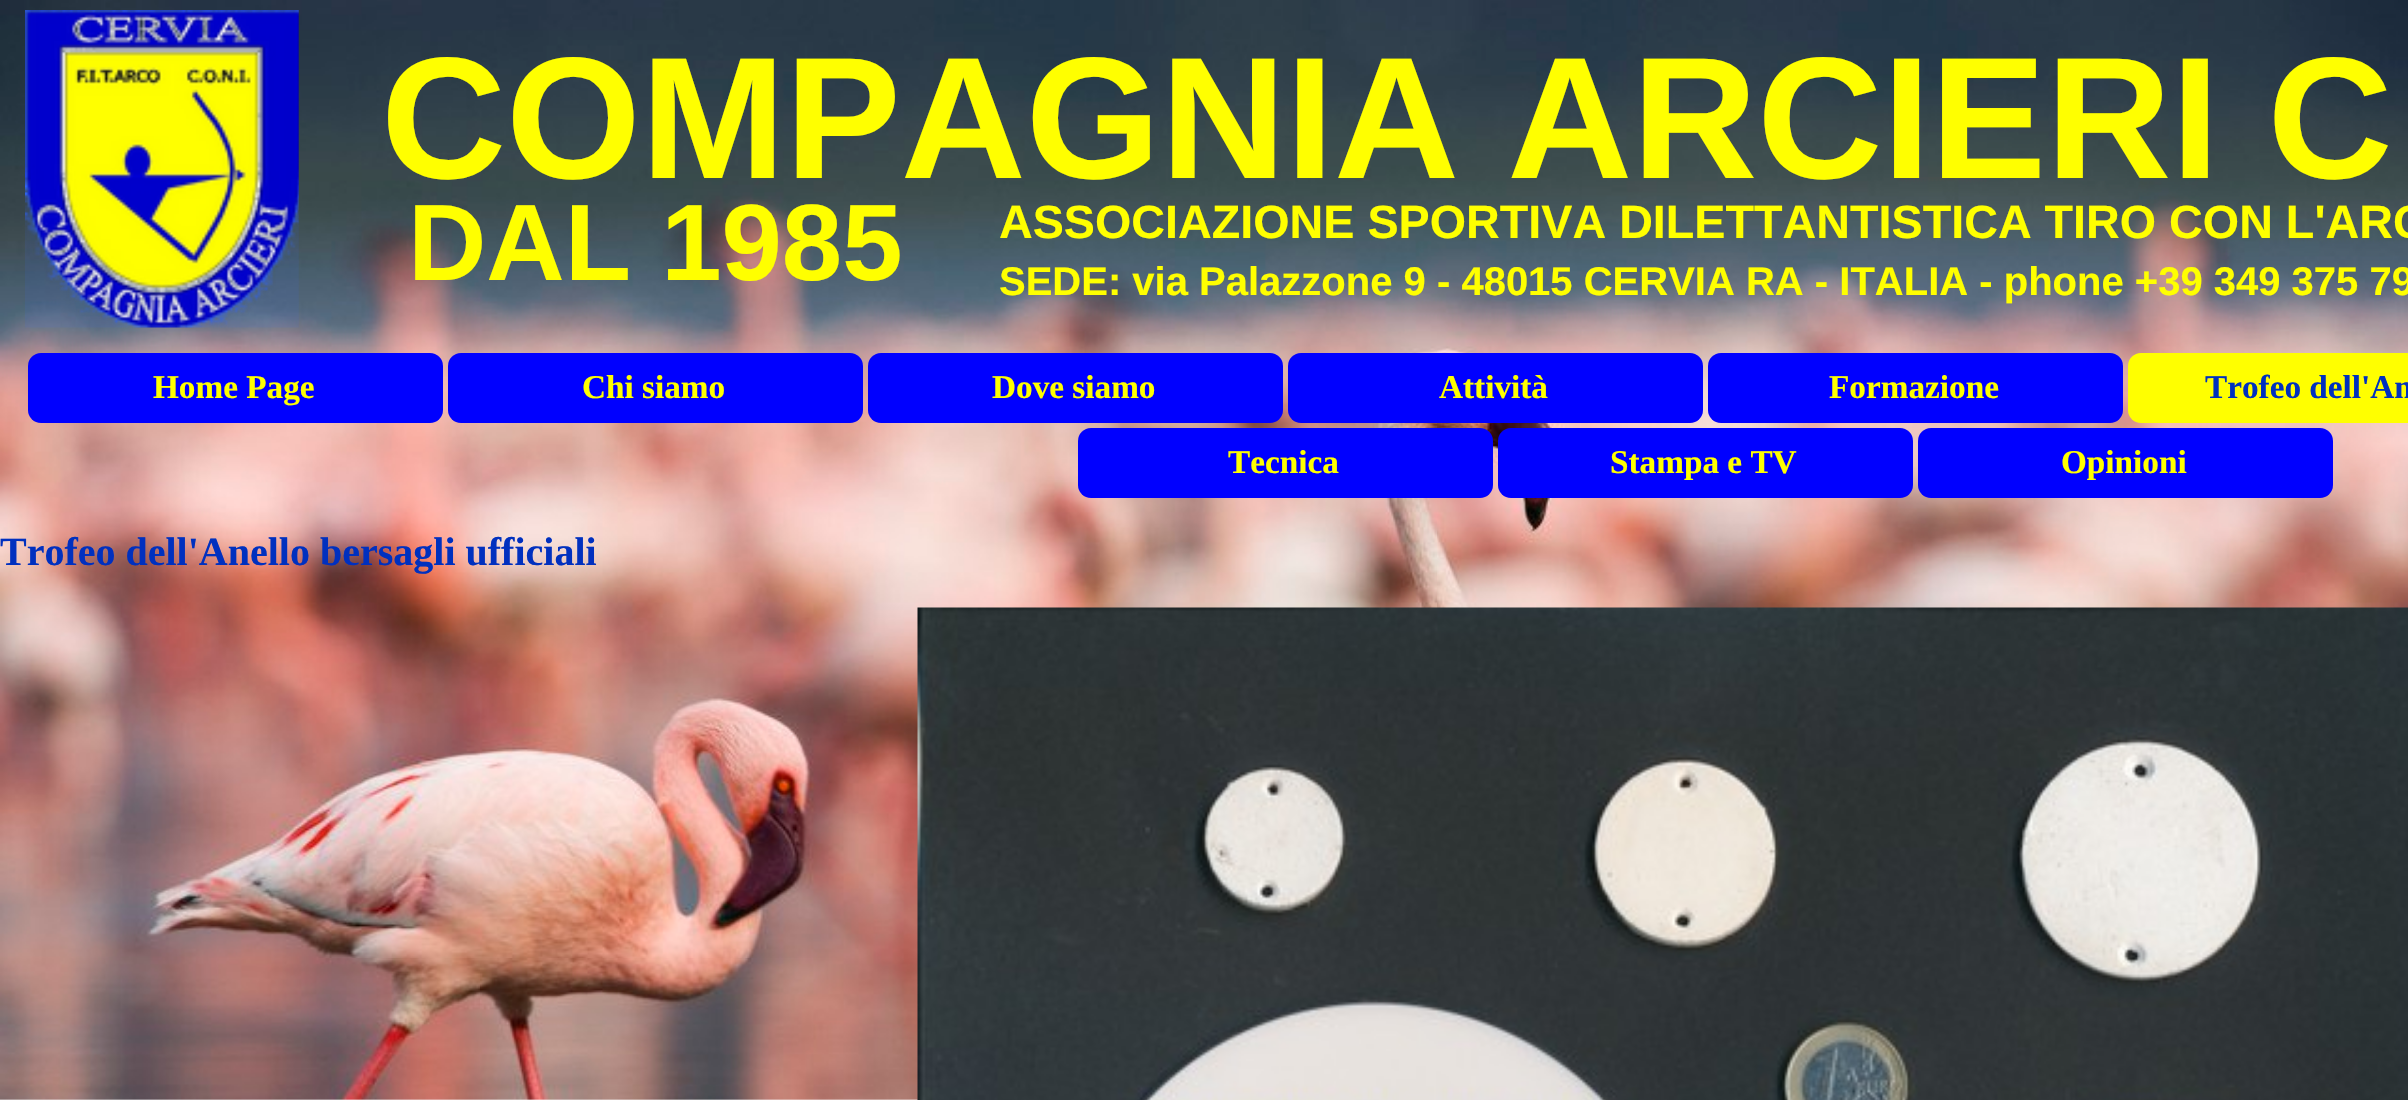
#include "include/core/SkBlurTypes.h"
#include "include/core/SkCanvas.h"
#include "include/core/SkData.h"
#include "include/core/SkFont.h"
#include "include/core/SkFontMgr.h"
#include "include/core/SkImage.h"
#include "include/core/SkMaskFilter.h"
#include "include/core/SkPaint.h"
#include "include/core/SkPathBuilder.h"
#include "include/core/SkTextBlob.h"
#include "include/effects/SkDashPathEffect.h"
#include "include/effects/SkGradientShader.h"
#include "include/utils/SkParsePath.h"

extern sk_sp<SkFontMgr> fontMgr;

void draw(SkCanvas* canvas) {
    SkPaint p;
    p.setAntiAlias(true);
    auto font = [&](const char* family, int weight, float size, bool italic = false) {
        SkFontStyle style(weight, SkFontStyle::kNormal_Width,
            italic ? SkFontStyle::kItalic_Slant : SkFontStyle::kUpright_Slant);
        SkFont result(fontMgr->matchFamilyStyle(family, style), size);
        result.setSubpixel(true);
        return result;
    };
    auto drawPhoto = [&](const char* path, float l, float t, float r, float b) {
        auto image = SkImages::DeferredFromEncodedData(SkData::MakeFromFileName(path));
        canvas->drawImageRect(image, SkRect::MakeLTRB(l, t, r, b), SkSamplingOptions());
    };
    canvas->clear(0xFFFFFFFF);
    drawPhoto("media/1.png", 0, 0, 2408, 1100);
    drawPhoto("media/2.png", 25, 10, 299, 328);
    auto font1 = font("Liberation Sans", 700, 173.25f);
    p.setColor(0xFFFFFF00);
    canvas->drawString("COMPAGNIA ARCIERI C", 381, 178, font1, p);
    auto font2 = font("Liberation Sans", 700, 108.5f);
    canvas->drawString("DAL 1985", 408, 280, font2, p);
    auto font3 = font("Liberation Sans", 700, 46.7f);
    canvas->drawString("ASSOCIAZIONE SPORTIVA DILETTANTISTICA TIRO CON L'ARC", 999, 238, font3, p);
    auto font4 = font("Liberation Sans", 700, 40);
    canvas->drawString("SEDE: via Palazzone 9 - 48015 CERVIA RA - ITALIA - phone +39 349 375 79", 999, 295, font4, p);
    p.setColor(0xFF0000FF);
    canvas->drawRoundRect(SkRect::MakeLTRB(28, 353, 443, 423), 13, 13, p);
    auto font5 = font("Liberation Serif", 700, 33.25f);
    p.setColor(0xFFFFFF00);
    canvas->drawString("Home Page", 153, 398, font5, p);
    p.setColor(0xFF0000FF);
    canvas->drawRoundRect(SkRect::MakeLTRB(448, 353, 863, 423), 13, 13, p);
    p.setColor(0xFFFFFF00);
    canvas->drawString("Chi siamo", 582, 398, font5, p);
    p.setColor(0xFF0000FF);
    canvas->drawRoundRect(SkRect::MakeLTRB(868, 353, 1283, 423), 13, 13, p);
    p.setColor(0xFFFFFF00);
    canvas->drawString("Dove siamo", 992, 398, font5, p);
    p.setColor(0xFF0000FF);
    canvas->drawRoundRect(SkRect::MakeLTRB(1288, 353, 1703, 423), 13, 13, p);
    p.setColor(0xFFFFFF00);
    canvas->drawString("Attività", 1439, 398, font5, p);
    p.setColor(0xFF0000FF);
    canvas->drawRoundRect(SkRect::MakeLTRB(1708, 353, 2123, 423), 13, 13, p);
    p.setColor(0xFFFFFF00);
    canvas->drawString("Formazione", 1829, 398, font5, p);
    canvas->drawRoundRect(SkRect::MakeLTRB(2128, 353, 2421, 423), 13, 13, p);
    p.setColor(0xFF0030BF);
    canvas->drawString("Trofeo dell'An", 2205, 398, font5, p);
    p.setColor(0xFF0000FF);
    canvas->drawRoundRect(SkRect::MakeLTRB(1078, 428, 1493, 498), 13, 13, p);
    p.setColor(0xFFFFFF00);
    canvas->drawString("Tecnica", 1228, 473, font5, p);
    p.setColor(0xFF0000FF);
    canvas->drawRoundRect(SkRect::MakeLTRB(1498, 428, 1913, 498), 13, 13, p);
    p.setColor(0xFFFFFF00);
    canvas->drawString("Stampa e TV", 1610, 473, font5, p);
    p.setColor(0xFF0000FF);
    canvas->drawRoundRect(SkRect::MakeLTRB(1918, 428, 2333, 498), 13, 13, p);
    p.setColor(0xFFFFFF00);
    canvas->drawString("Opinioni", 2061, 473, font5, p);
    auto font6 = font("Liberation Serif", 700, 40);
    p.setColor(0xFF0030BF);
    canvas->drawString("Trofeo dell'Anello bersagli ufficiali", 0, 565, font6, p);
    drawPhoto("media/3.png", 917, 607, 2408, 1100);
}
